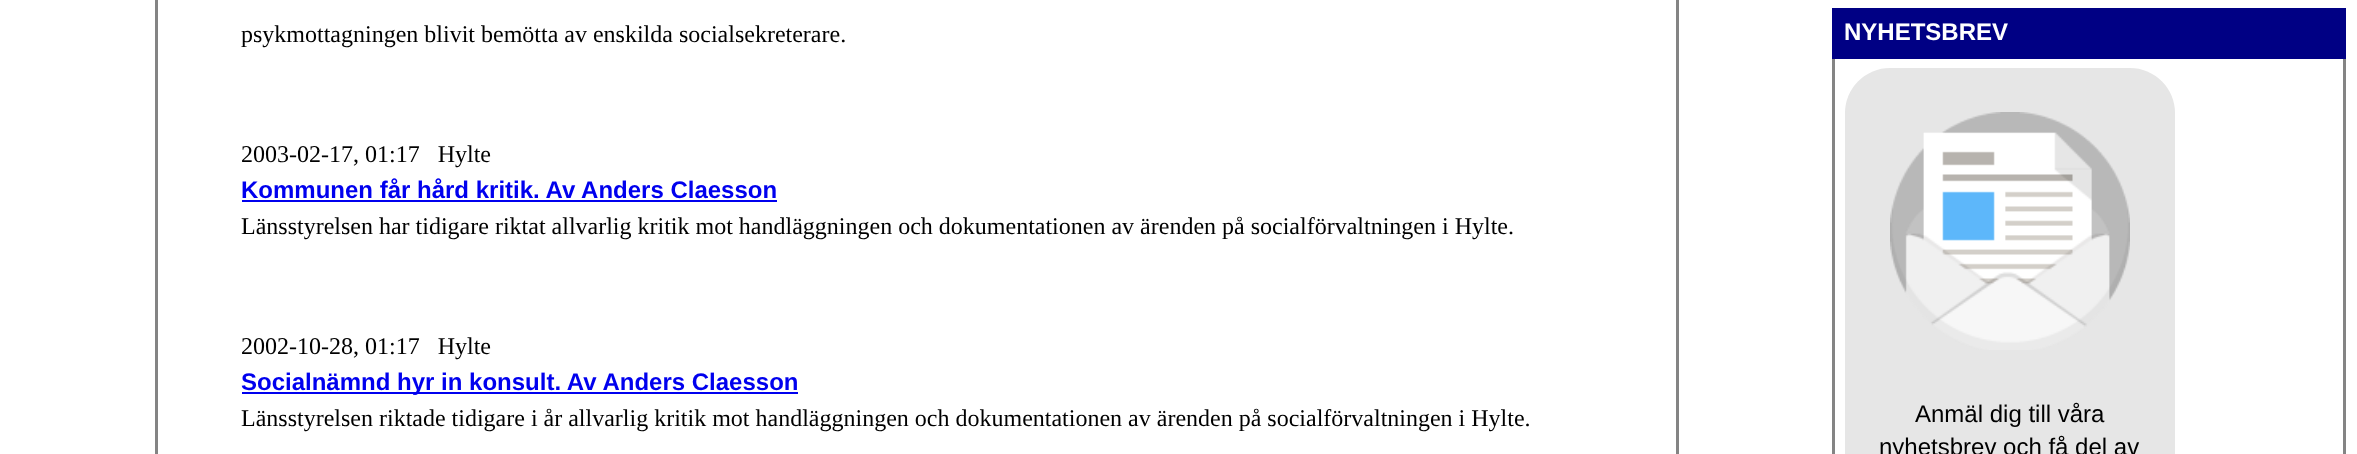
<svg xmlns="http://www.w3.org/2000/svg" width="2357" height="454">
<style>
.a{font:24px Liberation Serif;fill:#000}
.b{font:bold 24px Liberation Sans;fill:#00e}
.c{font:bold 24px Liberation Sans;fill:#fff}
.d{font:24px Liberation Sans;fill:#000}
</style>
<rect width="100%" height="100%" fill="#fff"/>
<path fill="none" stroke="#848484" stroke-width="3" d="M156.5 -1.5h1521v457H156.5z"/>
<path fill="#00e" d="M242 200h535v2H242z"/>
<path fill="#00e" d="M242 392h556v2H242z"/>
<path fill="#000084" d="M1832 8h514v51H1832z"/>
<path fill="#848484" d="M2343 59h3v395H2343z"/>
<path fill="#848484" d="M1832 59h3v395H1832z"/>
<rect fill="#e6e6e6" x="1845" y="68" width="330" height="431" rx="45"/>
<image href="1.png" x="1890" y="112" width="240" height="238"/>
<text class="a" x="241" y="42">psykmottagningen blivit bemötta av enskilda socialsekreterare.</text>
<text class="a" xml:space="preserve" x="241" y="162">2003-02-17, 01:17   Hylte</text>
<text class="b" x="241" y="198">Kommunen får hård kritik. Av Anders Claesson</text>
<text class="a" x="241" y="234">Länsstyrelsen har tidigare riktat allvarlig kritik mot handläggningen och dokumentationen av ärenden på socialförvaltningen i Hylte.</text>
<text class="a" xml:space="preserve" x="241" y="354">2002-10-28, 01:17   Hylte</text>
<text class="b" x="241" y="390">Socialnämnd hyr in konsult. Av Anders Claesson</text>
<text class="a" x="241" y="426">Länsstyrelsen riktade tidigare i år allvarlig kritik mot handläggningen och dokumentationen av ärenden på socialförvaltningen i Hylte.</text>
<text class="c" x="1844" y="40">NYHETSBREV</text>
<text class="d" x="1915" y="422">Anmäl dig till våra</text>
<text class="d" x="1879" y="455">nyhetsbrev och få del av</text>
</svg>
